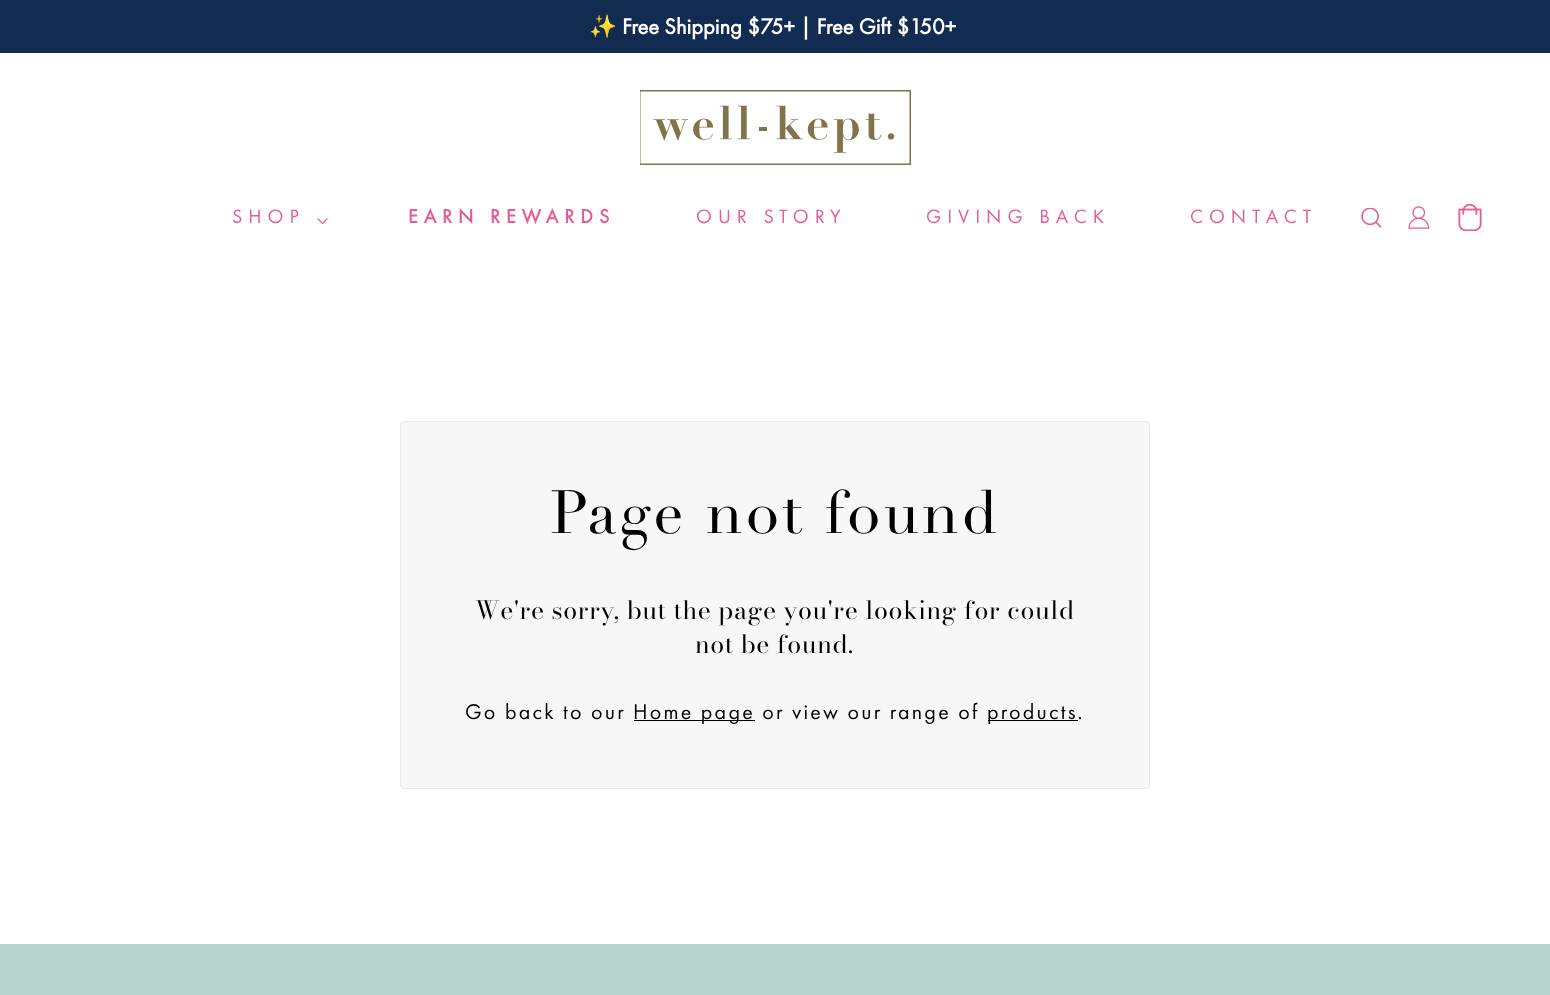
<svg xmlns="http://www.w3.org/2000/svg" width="1550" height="995">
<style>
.a{font:bold 22.5px Noto Color Emoji;fill:#fff}
.b{font:bold 22.5px Futura PT;fill:#fff}
.c{font:20px Futura PT;letter-spacing:6px;fill:#e65c94}
.d{font:bold 20px Futura PT;letter-spacing:6px;fill:#e65c94}
.e{font:60px Didot;letter-spacing:3px;fill:#000}
.f{font:25px Bodoni Moda;letter-spacing:0.6px;fill:#000}
.g{font:22px Futura PT;letter-spacing:2.2px;fill:#000}
</style>
<defs>
<clipPath id="clip1"><path d="M589 13h372v27H589z"/></clipPath>
</defs>
<rect width="100%" height="100%" fill="#fff"/>
<path fill="#122b50" d="M0 0h1550v53H0z"/>
<image href="1.png" x="640" y="90" width="271" height="75"/>
<image href="2.png" x="317" y="218" width="11" height="7"/>
<image href="3.png" x="1361" y="208" width="20" height="20"/>
<image href="4.png" x="1408" y="206" width="22" height="23"/>
<image href="5.png" x="1458" y="204" width="24" height="27"/>
<rect fill="#f7f7f7" stroke="#eaeaea" x="400.5" y="421.5" width="749" height="367" rx="3.5"/>
<path fill="#000" d="M634 720h121v1H634z"/>
<path fill="#000" d="M988 720h90v1H988z"/>
<path fill="#b8d5cd" d="M0 944h1550v51H0z"/>
<g clip-path="url(#clip1)">
<text class="a" x="589" y="34">✨</text>
</g>
<text class="b" x="622" y="34">Free Shipping $75+ | Free Gift $150+</text>
<text class="c" x="232" y="223">SHOP</text>
<text class="d" x="408" y="223">EARN REWARDS</text>
<text class="c" x="696" y="223">OUR STORY</text>
<text class="c" x="926" y="223">GIVING BACK</text>
<text class="c" x="1190" y="223">CONTACT</text>
<text class="e" x="550" y="533">Page not found</text>
<text class="f" x="475" y="619">We're sorry, but the page you're looking for could</text>
<text class="f" x="695" y="653">not be found.</text>
<text class="g" x="465" y="719">Go back to our</text>
<text class="g" x="633" y="719">Home page or view our range of</text>
<text class="g" x="987" y="719">products.</text>
</svg>
